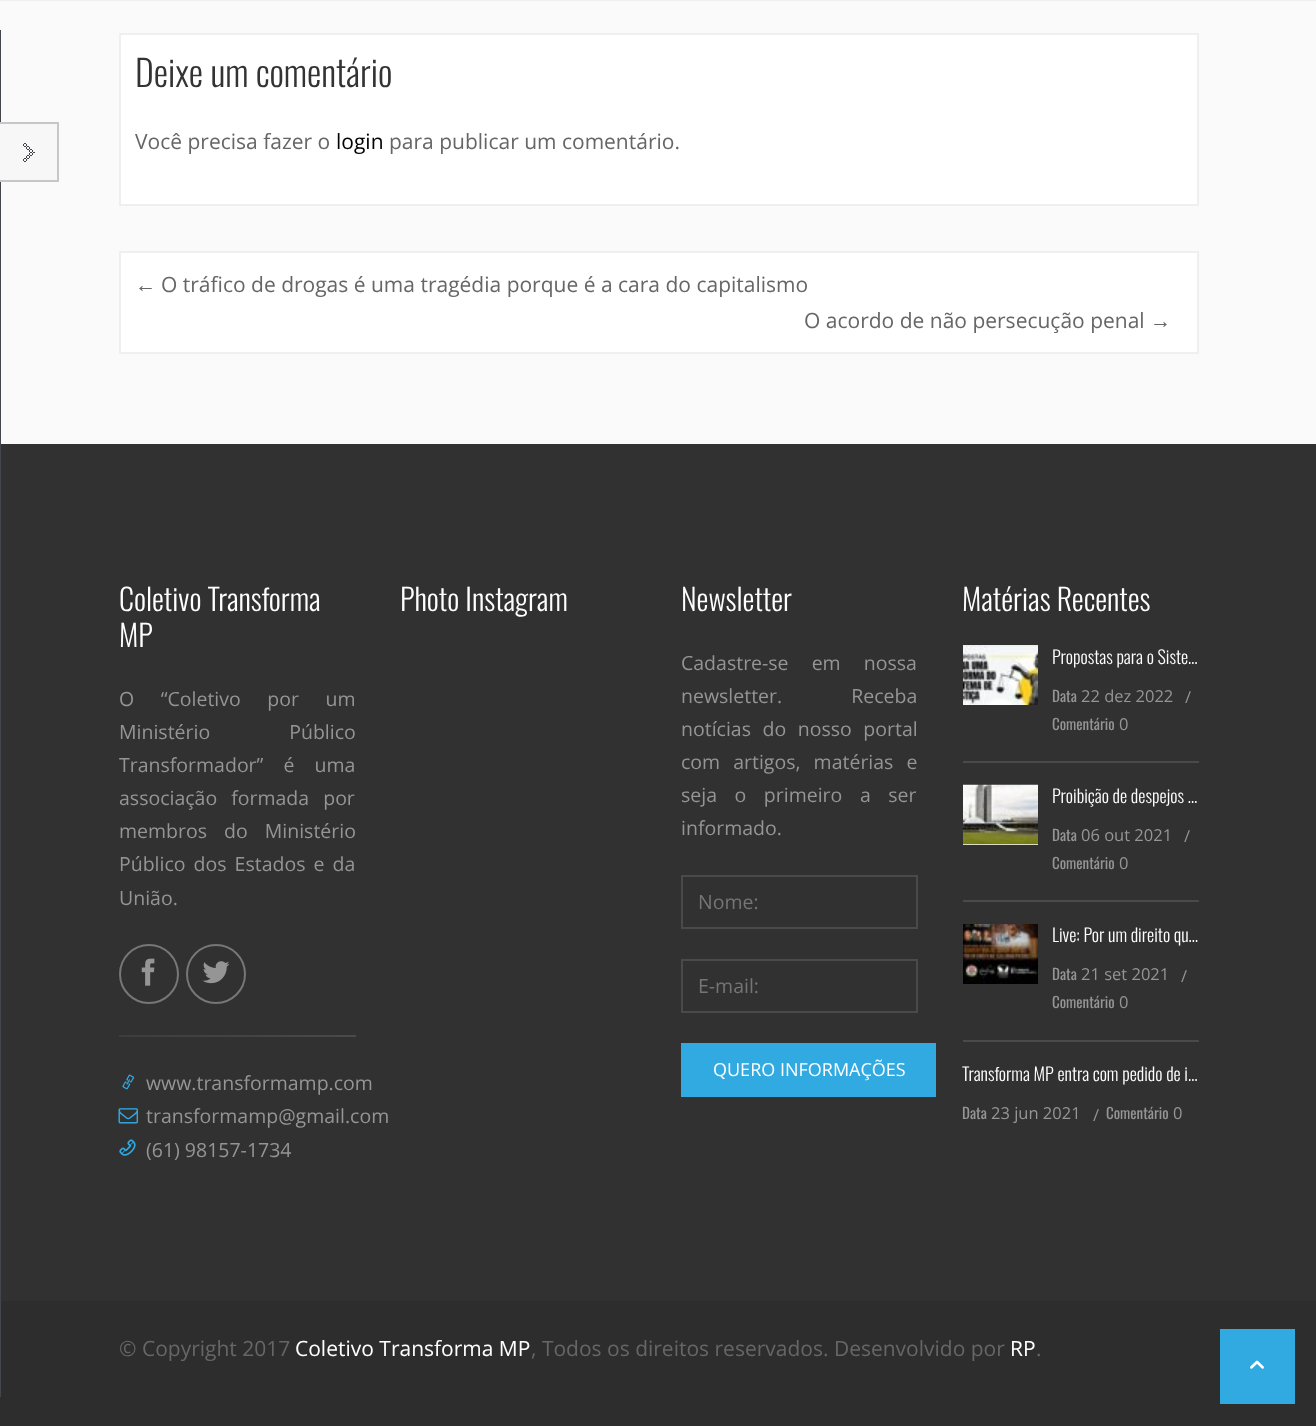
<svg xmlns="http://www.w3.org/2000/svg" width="1316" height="1426">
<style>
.a{font:300 36px Oswald;fill:#333}
.b{font:21px Open Sans;fill:#666}
.c{font:21px Open Sans;fill:#000}
.d{font:21px Liberation Serif;fill:#666}
.e{font:300 30px Oswald;fill:#fff}
.f{font:19.5px Open Sans;fill:#959595}
.g{font:19.5px Open Sans;fill:#757575}
.h{font:18px Open Sans;fill:#fff}
.i{font:300 18px Oswald;fill:#fff}
.j{font:15px Oswald;fill:#959595}
.k{font:16.5px Open Sans;fill:#959595}
.l{font:21px Open Sans;fill:#fff}
</style>
<defs>
<linearGradient id="g1" gradientUnits="userSpaceOnUse" x1="119" y1="1036" x2="356" y2="1036"><stop offset="0" stop-color="#3d3d3d"/><stop offset="0.35" stop-color="#414141"/><stop offset="0.7" stop-color="#464646"/><stop offset="1" stop-color="#4a4a4a"/></linearGradient>
</defs>
<rect width="100%" height="100%" fill="#fafafa"/>
<path fill="#2d2d2d" d="M0 1301h1316v125H0z"/>
<path fill="#43474d" d="M0 30h1v1367H0z"/>
<path fill="#f7f7f7" d="M0 124h57v56H0z"/>
<image href="1.png" x="23" y="143" width="12" height="19"/>
<path fill="#c7c7c7" d="M0 122h59v2H0z"/>
<path fill="#c7c7c7" d="M57 122h2v60H57z"/>
<path fill="#c7c7c7" d="M0 180h59v2H0z"/>
<path fill="#efefef" d="M0 0h1316v1H0z"/>
<path fill="#fff" stroke="#efefef" stroke-width="2" d="M120 34h1078v171H120z"/>
<path fill="#fff" stroke="#efefef" stroke-width="2" d="M120 252h1078v101H120z"/>
<path fill="#313131" d="M1 444h1315v857H1z"/>
<circle fill="none" stroke="#777" stroke-width="2" cx="149" cy="974" r="29"/>
<image href="2.png" x="141" y="958" width="14" height="28"/>
<circle fill="none" stroke="#777" stroke-width="2" cx="216" cy="974" r="29"/>
<image href="3.png" x="202" y="961" width="28" height="23"/>
<path fill="url(#g1)" d="M119 1035h237v2H119z"/>
<image href="4.png" x="122" y="1074" width="13" height="16"/>
<image href="5.png" x="118" y="1108" width="20" height="16"/>
<image href="6.png" x="119" y="1139" width="17" height="17"/>
<path fill="none" stroke="#4a4a4a" stroke-width="2" d="M682 876h235v52H682z"/>
<path fill="none" stroke="#4a4a4a" stroke-width="2" d="M682 960h235v52H682z"/>
<path fill="#31aae2" d="M681 1043h255v54H681z"/>
<image href="7.png" x="963" y="645" width="75" height="60"/>
<path fill="#4a4a4a" d="M963 761h236v2H963z"/>
<path fill="#fff" d="M963 844h75v1H963z"/>
<image href="8.png" x="963" y="784" width="75" height="61"/>
<path fill="#4a4a4a" d="M963 900h236v2H963z"/>
<image href="9.png" x="963" y="924" width="75" height="60"/>
<path fill="#4a4a4a" d="M963 1040h236v2H963z"/>
<path fill="#31aae2" d="M1220 1329h75v75H1220z"/>
<image href="10.png" x="1250" y="1360" width="14" height="9"/>
<text class="a" x="135" y="87">Deixe um comentário</text>
<text class="b" x="135" y="149">Você precisa fazer o</text>
<text class="c" x="336" y="149">login</text>
<text class="b" x="389" y="149">para publicar um comentário.</text>
<text class="d" x="135" y="292">←</text>
<text class="b" x="161" y="292">O tráfico de drogas é uma tragédia porque é a cara do capitalismo</text>
<text class="b" x="804" y="328">O acordo de não persecução penal</text>
<text class="d" x="1150" y="328">→</text>
<text class="e" x="119" y="611">Coletivo Transforma</text>
<text class="e" x="119" y="647">MP</text>
<text class="f" x="119" y="706" word-spacing="21.5">O “Coletivo por um</text>
<text class="f" x="119" y="739" word-spacing="74">Ministério Público</text>
<text class="f" x="119" y="772" word-spacing="15">Transformador” é uma</text>
<text class="f" x="119" y="805" word-spacing="9">associação formada por</text>
<text class="f" x="119" y="838" word-spacing="12">membros do Ministério</text>
<text class="f" x="119" y="871" word-spacing="3">Público dos Estados e da</text>
<text class="f" x="119" y="905">União.</text>
<text class="f" x="146" y="1090">www.transformamp.com</text>
<text class="f" x="146" y="1123">transformamp@gmail.com</text>
<text class="f" x="146" y="1157">(61) 98157-1734</text>
<text class="e" x="400" y="611">Photo Instagram</text>
<text class="e" x="681" y="611">Newsletter</text>
<text class="f" x="681" y="670" word-spacing="18">Cadastre-se em nossa</text>
<text class="f" x="681" y="703" word-spacing="64">newsletter. Receba</text>
<text class="f" x="681" y="736" word-spacing="6.5">notícias do nosso portal</text>
<text class="f" x="681" y="769" word-spacing="8">com artigos, matérias e</text>
<text class="f" x="681" y="802" word-spacing="12.5">seja o primeiro a ser</text>
<text class="f" x="681" y="835">informado.</text>
<text class="g" x="698" y="909">Nome:</text>
<text class="g" x="698" y="993">E-mail:</text>
<text class="h" x="713" y="1076">QUERO INFORMAÇÕES</text>
<text class="e" x="962" y="611">Matérias Recentes</text>
<text class="i" x="1052" y="664">Propostas para o Siste…</text>
<text class="j" x="1052" y="702">Data</text>
<text class="k" x="1081" y="702">22 dez 2022</text>
<text class="k" x="1185" y="703">/</text>
<text class="j" x="1052" y="730">Comentário</text>
<text class="k" x="1119" y="730">0</text>
<text class="i" x="1052" y="803">Proibição de despejos …</text>
<text class="j" x="1052" y="841">Data</text>
<text class="k" x="1081" y="841">06 out 2021</text>
<text class="k" x="1184" y="842">/</text>
<text class="j" x="1052" y="869">Comentário</text>
<text class="k" x="1119" y="869">0</text>
<text class="i" x="1052" y="942">Live: Por um direito qu…</text>
<text class="j" x="1052" y="980">Data</text>
<text class="k" x="1081" y="980">21 set 2021</text>
<text class="k" x="1181" y="982">/</text>
<text class="j" x="1052" y="1008">Comentário</text>
<text class="k" x="1119" y="1008">0</text>
<text class="i" x="962" y="1081">Transforma MP entra com pedido de i…</text>
<text class="j" x="962" y="1119">Data</text>
<text class="k" x="991" y="1119">23 jun 2021</text>
<text class="k" x="1093" y="1121">/</text>
<text class="j" x="1106" y="1119">Comentário</text>
<text class="k" x="1173" y="1119">0</text>
<text class="b" x="119" y="1356">© Copyright 2017</text>
<text class="l" x="295" y="1356">Coletivo Transforma MP</text>
<text class="b" x="531" y="1356">, Todos os direitos reservados. Desenvolvido por</text>
<text class="l" x="1010" y="1356">RP</text>
<text class="b" x="1036" y="1356">.</text>
</svg>
